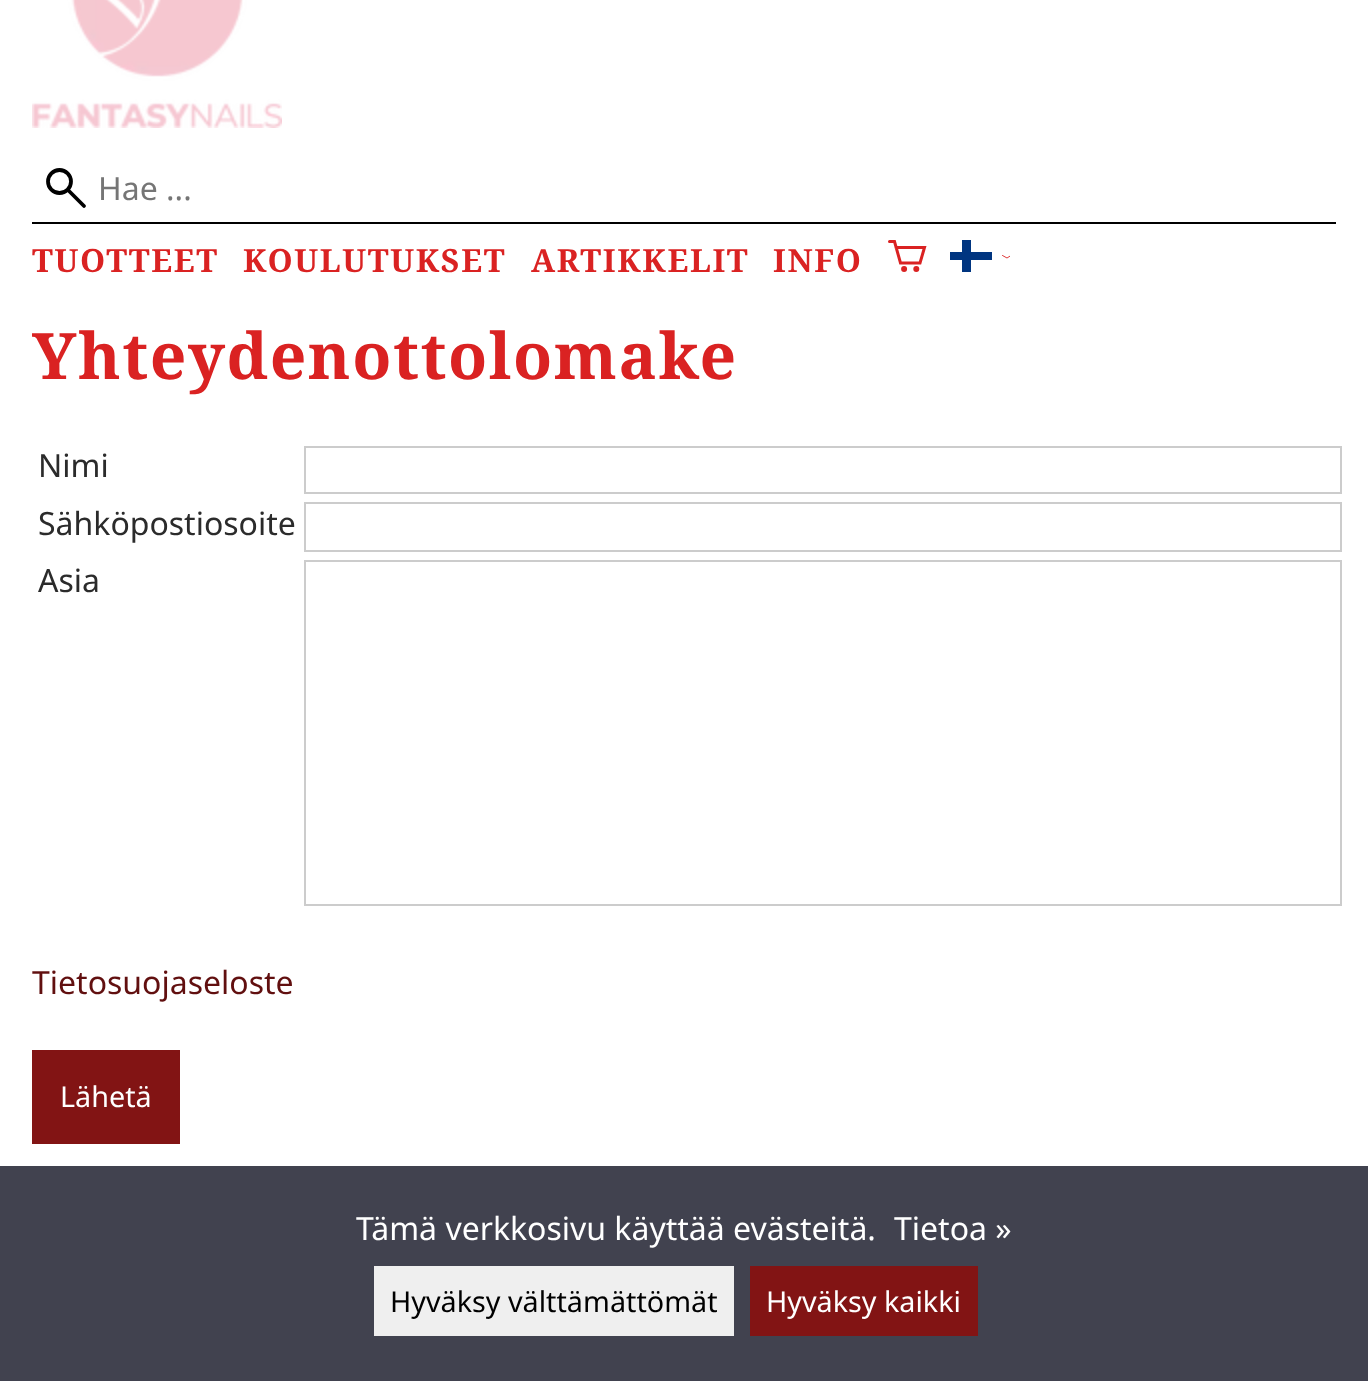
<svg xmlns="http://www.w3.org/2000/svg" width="1368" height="1381">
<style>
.a{font:32px Noto Sans;fill:#757575}
.b{font:bold 32px Noto Serif;letter-spacing:1.6px;fill:#da2222}
.c{font:bold 64px Noto Serif;letter-spacing:1.6px;fill:#da2222}
.d{font:32px Noto Sans;fill:#2b2b2b}
.e{font:32px Noto Sans;fill:#610f0f}
.f{font:28.75px Noto Sans;fill:#fff}
.g{font:32px Noto Sans;fill:#fff}
.h{font:28.75px Noto Sans;fill:#000}
</style>
<defs>
<clipPath id="clip1"><path d="M1002 240h8v32H1002z"/></clipPath>
</defs>
<rect width="100%" height="100%" fill="#fff"/>
<image href="1.png" x="32" y="0" width="250" height="128"/>
<path fill="none" stroke="#000" stroke-width="3.8" stroke-linecap="round" d="M84 206l-16-16"/>
<circle fill="none" stroke="#000" stroke-width="3.8" cx="59.5" cy="181.5" r="11.5"/>
<path fill="#000" d="M32 222h1304v2H32z"/>
<path fill="none" stroke="#da2222" stroke-width="3" stroke-linecap="round" d="M896 247.5h28.5l-4.5 15.5h-19.5l-6-21.5h-5"/>
<circle fill="none" stroke="#da2222" stroke-width="3" cx="904.1" cy="269" r="1.5"/>
<circle fill="none" stroke="#da2222" stroke-width="3" cx="916.3" cy="269" r="1.5"/>
<path fill="#003580" d="M950 252h42v8H950z"/>
<path fill="#003580" d="M962 240h9v32H962z"/>
<g clip-path="url(#clip1)">
<path fill="none" stroke="#da2222" stroke-width="0.9" stroke-linecap="round" d="M1002.5 255.5l4.5 2.5l4-2.5"/>
</g>
<path fill="none" stroke="#ccc" stroke-width="2" d="M305 447h1036v46H305z"/>
<path fill="none" stroke="#ccc" stroke-width="2" d="M305 503h1036v48H305z"/>
<path fill="none" stroke="#ccc" stroke-width="2" d="M305 561h1036v344H305z"/>
<path fill="#821414" d="M32 1050h148v94H32z"/>
<path fill="#41424f" d="M0 1166h1368v215H0z"/>
<path fill="#efefef" d="M374 1266h360v70H374z"/>
<path fill="#821414" d="M750 1266h228v70H750z"/>
<text class="a" x="98" y="200">Hae ...</text>
<text class="b" x="32" y="272">TUOTTEET</text>
<text class="b" x="243" y="272">KOULUTUKSET</text>
<text class="b" x="531" y="272">ARTIKKELIT</text>
<text class="b" x="773" y="272">INFO</text>
<text class="c" x="32" y="379">Yhteydenottolomake</text>
<text class="d" x="38" y="477">Nimi</text>
<text class="d" x="38" y="535">Sähköpostiosoite</text>
<text class="d" x="38" y="592">Asia</text>
<text class="e" x="32" y="994">Tietosuojaseloste</text>
<text class="f" x="60" y="1107">Lähetä</text>
<text class="g" x="356" y="1240">Tämä verkkosivu käyttää evästeitä.</text>
<text class="g" x="894" y="1240">Tietoa »</text>
<text class="h" x="390" y="1312">Hyväksy välttämättömät</text>
<text class="f" x="766" y="1312">Hyväksy kaikki</text>
</svg>
